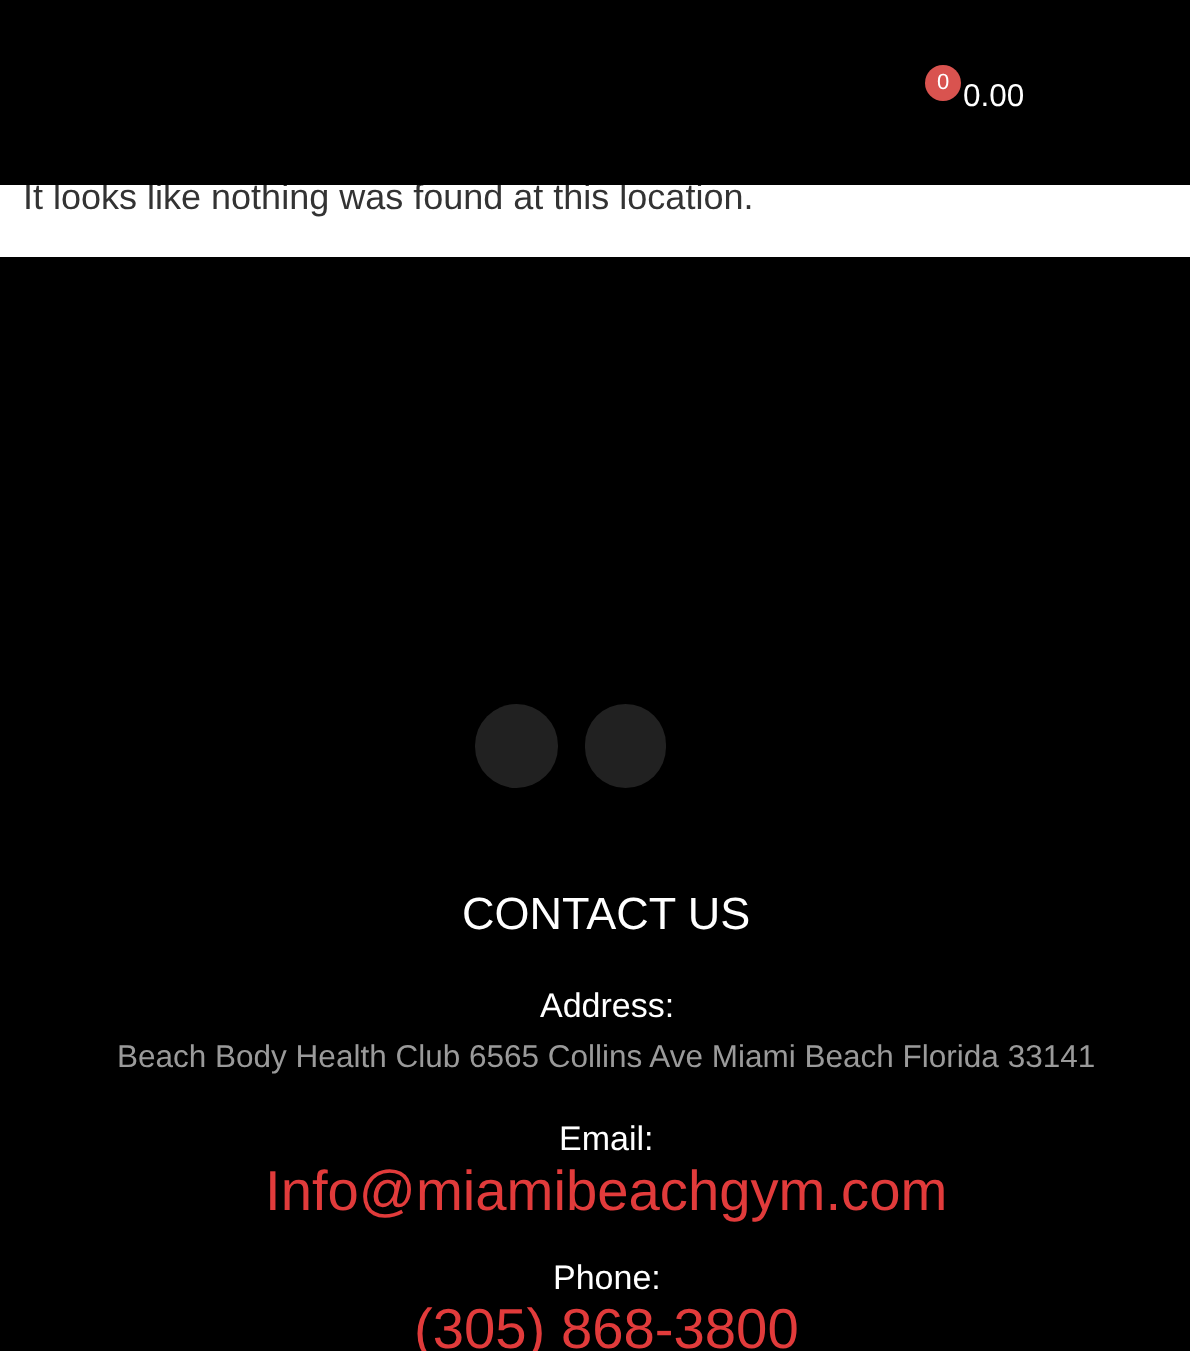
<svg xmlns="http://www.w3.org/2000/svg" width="1190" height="1351">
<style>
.a{font:36px Liberation Sans;fill:#333}
.b{font:22px Liberation Sans;fill:#fff}
.c{font:31.5px Liberation Sans;fill:#fff}
.d{font:45px Liberation Sans;fill:#fff}
.e{font:34px Liberation Sans;fill:#fff}
.f{font:31.5px Liberation Sans;fill:#9a9a9a}
.g{font:56.25px Liberation Sans;fill:#e13b3b}
</style>
<rect width="100%" height="100%" fill="#fff"/>
<path fill="#000" d="M0 257h1190v1094H0z"/>
<rect fill="#212121" x="475" y="704" width="83" height="84" rx="41.5"/>
<rect fill="#212121" x="585" y="704" width="81" height="84" rx="40.5"/>
<text class="a" x="23" y="209">It looks like nothing was found at this location.</text>
<path fill="#000" d="M0 0h1190v185H0z"/>
<circle fill="#d9534f" cx="943" cy="83" r="18"/>
<text class="b" x="937" y="89">0</text>
<text class="c" x="963" y="106">0.00</text>
<text class="d" x="462" y="929">CONTACT US</text>
<text class="e" x="540" y="1017">Address:</text>
<text class="f" x="117" y="1067">Beach Body Health Club 6565 Collins Ave Miami Beach Florida 33141</text>
<text class="e" x="559" y="1150">Email:</text>
<text class="g" x="265" y="1210">Info@miamibeachgym.com</text>
<text class="e" x="553" y="1289">Phone:</text>
<text class="g" x="414" y="1348">(305) 868-3800</text>
</svg>
